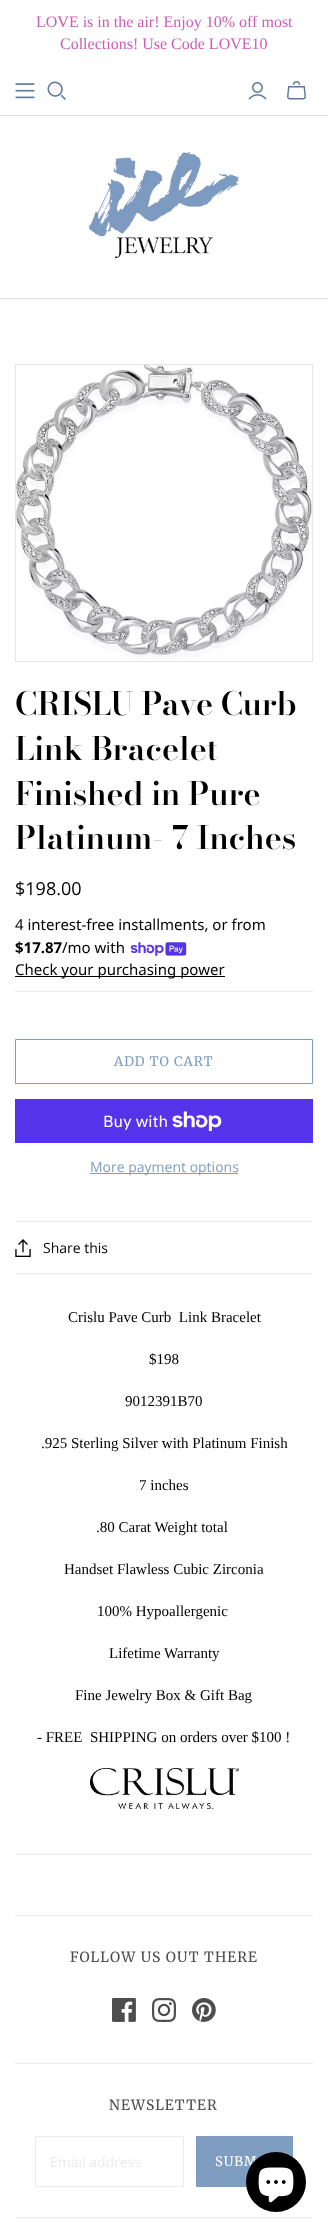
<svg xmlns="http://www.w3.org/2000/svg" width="328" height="2233">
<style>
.a{font:16px Liberation Serif;fill:#cc5cb7}
.b{font:600 32px Bodoni Moda;fill:#000}
.c{font:18px Open Sans;fill:#000}
.d{font:15px Noto Sans;fill:#000}
.e{font:bold 15px Noto Sans;fill:#000}
.f{font:13px Merriweather;letter-spacing:1px;fill:#7e9dc0}
.g{font:16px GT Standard;fill:#fff}
.h{font:14px Open Sans;fill:#7e9dc0}
.i{font:14px Open Sans;fill:#000}
.j{font:15px Liberation Serif;fill:#000}
.k{font:14px Merriweather;letter-spacing:1.1px;fill:#4d4d4d}
.l{font:14px Open Sans;fill:#ebebeb}
.m{font:13px Merriweather;letter-spacing:1px;fill:#fff}
</style>
<rect width="100%" height="100%" fill="#fff"/>
<path fill="#ddd" d="M0 298h328v1H0z"/>
<image href="1.png" x="15" y="83" width="20" height="16"/>
<image href="2.png" x="47" y="81" width="19" height="19"/>
<image href="3.png" x="248" y="82" width="19" height="18"/>
<image href="4.png" x="287" y="81" width="19" height="19"/>
<path fill="#ddd" d="M0 115h328v1H0z"/>
<image href="5.png" x="89" y="152" width="150" height="106"/>
<image href="6.png" x="15" y="364" width="297" height="296"/>
<path fill="none" stroke="#0000001a" d="M15.5 364.5h297v297H15.5z"/>
<path fill="#ebebeb" d="M15 991h298v1H15z"/>
<image href="7.png" x="130" y="942" width="57" height="14"/>
<path fill="#000" d="M15 976h210v1H15z"/>
<path fill="#ebebeb" d="M15 1221h298v1H15z"/>
<path fill="none" stroke="#7e9dc0" d="M15.5 1039.5h297v44H15.5z"/>
<path fill="#5433eb" d="M15 1099h298v44H15z"/>
<image href="8.png" x="172" y="1111" width="50" height="20"/>
<path fill="#7e9dc0" d="M90 1173h148v1H90z"/>
<path fill="#ebebeb" d="M15 1273h298v1H15z"/>
<image href="9.png" x="15" y="1239" width="16" height="18"/>
<image href="10.png" x="90" y="1768" width="149" height="41"/>
<path fill="#ebebeb" d="M15 1854h298v1H15z"/>
<path fill="#ebebeb" d="M15 2217h298v1H15z"/>
<path fill="#ebebeb" d="M15 1915h298v1H15z"/>
<image href="11.png" x="112" y="1998" width="24" height="24"/>
<image href="12.png" x="152" y="1998" width="24" height="24"/>
<image href="13.png" x="192" y="1998" width="24" height="24"/>
<path fill="#ebebeb" d="M15 2063h298v1H15z"/>
<path fill="none" stroke="#ebebeb" d="M35.5 2136.5h148v50H35.5z"/>
<path fill="#7e9dc0" d="M196 2136h97v51H196z"/>
<text class="a" x="36" y="27">LOVE is in the air! Enjoy 10% off most</text>
<text class="a" x="60" y="49">Collections! Use Code LOVE10</text>
<text class="b" x="15" y="715">CRISLU Pave Curb</text>
<text class="b" x="15" y="760">Link Bracelet</text>
<text class="b" x="15" y="805">Finished in Pure</text>
<text class="b" x="15" y="849">Platinum- 7 Inches</text>
<text class="c" x="15" y="895">$198.00</text>
<text class="d" x="15" y="930">4 interest-free installments, or from</text>
<text class="e" x="15" y="953">$17.87</text>
<text class="d" x="62" y="953">/mo with</text>
<text class="d" x="15" y="975">Check your purchasing power</text>
<text class="f" x="114" y="1066">ADD TO CART</text>
<text class="g" x="103" y="1127">Buy with</text>
<text class="h" x="90" y="1172">More payment options</text>
<text class="i" x="43" y="1253">Share this</text>
<text class="j" xml:space="preserve" x="68" y="1322">Crislu Pave Curb  Link Bracelet</text>
<text class="j" x="149" y="1364">$198</text>
<text class="j" x="125" y="1406">9012391B70</text>
<text class="j" x="41" y="1448">.925 Sterling Silver with Platinum Finish</text>
<text class="j" x="139" y="1490">7 inches</text>
<text class="j" x="96" y="1532">.80 Carat Weight total</text>
<text class="j" x="64" y="1574">Handset Flawless Cubic Zirconia</text>
<text class="j" x="97" y="1616">100% Hypoallergenic</text>
<text class="j" x="109" y="1658">Lifetime Warranty</text>
<text class="j" x="75" y="1700">Fine Jewelry Box &amp; Gift Bag</text>
<text class="j" xml:space="preserve" x="37" y="1742">- FREE  SHIPPING on orders over $100 !</text>
<text class="k" x="70" y="1962">FOLLOW US OUT THERE</text>
<text class="k" x="109" y="2110">NEWSLETTER</text>
<text class="l" x="50" y="2167">Email address</text>
<text class="m" x="215" y="2166">SUBM</text>
<circle fill="#000" cx="276" cy="2182" r="30"/>
<image href="14.png" x="258" y="2167" width="36" height="36"/>
</svg>
